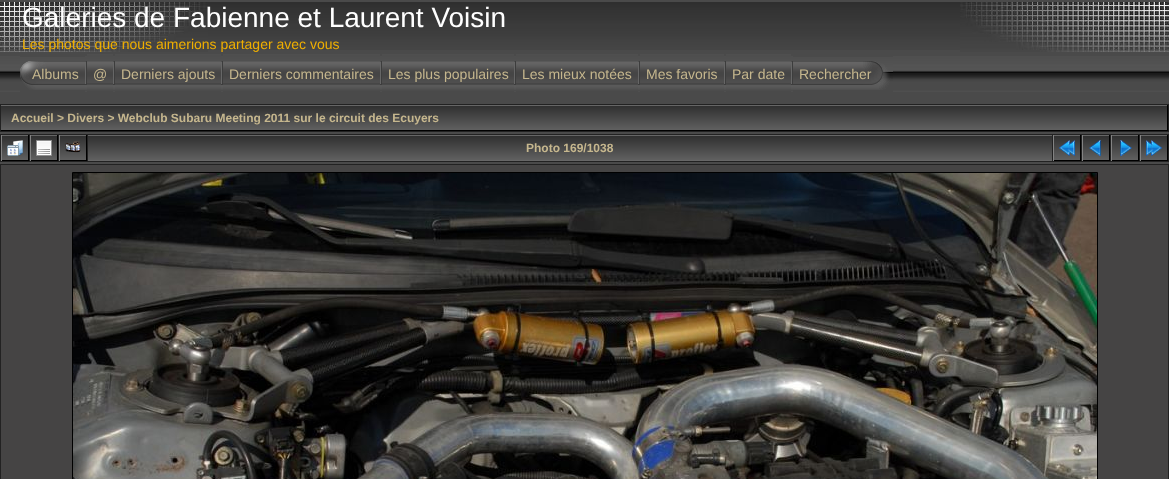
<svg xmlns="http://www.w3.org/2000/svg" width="1169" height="479">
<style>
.a{font:28px Liberation Sans;fill:#fff}
.b{font:14px Liberation Sans;fill:#f0af00}
.c{font:14px Liberation Sans;fill:#c6b78e}
.d{font:bold 12px Liberation Sans;fill:#c6b78e}
</style>
<rect width="100%" height="100%" fill="#4a4a4a"/>
<image href="1.png" x="208" y="2" width="752" height="48"/>
<image href="2.png" x="0" y="2" width="208" height="50"/>
<image href="3.png" x="960" y="2" width="209" height="50"/>
<image href="4.png" x="0" y="56" width="1169" height="36"/>
<path fill="#4a4a4a" d="M20 56h65v36H20z"/>
<image href="5.png" x="20" y="57" width="65" height="33"/>
<image href="6.png" x="85" y="61" width="2" height="29"/>
<path fill="#4a4a4a" d="M87 91h26v1H87z"/>
<image href="7.png" x="87" y="54" width="26" height="36"/>
<image href="6.png" x="113" y="61" width="2" height="29"/>
<path fill="#4a4a4a" d="M115 91h106v1H115z"/>
<image href="8.png" x="115" y="54" width="106" height="36"/>
<image href="6.png" x="221" y="61" width="2" height="29"/>
<path fill="#4a4a4a" d="M223 91h157v1H223z"/>
<image href="9.png" x="223" y="54" width="157" height="36"/>
<image href="6.png" x="380" y="61" width="2" height="29"/>
<path fill="#4a4a4a" d="M382 91h132v1H382z"/>
<image href="10.png" x="382" y="54" width="132" height="36"/>
<image href="6.png" x="514" y="61" width="2" height="29"/>
<path fill="#4a4a4a" d="M516 91h122v1H516z"/>
<image href="11.png" x="516" y="54" width="122" height="36"/>
<image href="6.png" x="638" y="61" width="2" height="29"/>
<path fill="#4a4a4a" d="M640 91h84v1H640z"/>
<image href="12.png" x="640" y="54" width="84" height="36"/>
<image href="6.png" x="724" y="61" width="2" height="29"/>
<path fill="#4a4a4a" d="M726 91h65v1H726z"/>
<image href="13.png" x="726" y="54" width="65" height="36"/>
<image href="6.png" x="791" y="61" width="2" height="29"/>
<path fill="#4a4a4a" d="M793 56h100v36H793z"/>
<image href="14.png" x="793" y="57" width="100" height="33"/>
<path fill="#222" d="M0 104h1169v28H0z"/>
<image href="15.png" x="1" y="105" width="1166" height="25"/>
<path fill="#000" d="M1167 105h1v26H1167z"/>
<path fill="#000" d="M1 130h1167v1H1z"/>
<path fill="#222" d="M0 134h1169v28H0z"/>
<image href="16.png" x="2" y="135" width="26" height="25"/>
<path fill="#000" d="M28 135h1v26H28z"/>
<path fill="#000" d="M1 160h28v1H1z"/>
<path fill="#838383" d="M1 135h1v26H1z"/>
<image href="17.png" x="7" y="140" width="16" height="16"/>
<image href="16.png" x="31" y="135" width="26" height="25"/>
<path fill="#000" d="M57 135h1v26H57z"/>
<path fill="#000" d="M30 160h28v1H30z"/>
<path fill="#838383" d="M30 135h1v26H30z"/>
<image href="18.png" x="36" y="140" width="16" height="16"/>
<image href="16.png" x="60" y="135" width="26" height="25"/>
<path fill="#000" d="M86 135h1v26H86z"/>
<path fill="#000" d="M59 160h28v1H59z"/>
<path fill="#838383" d="M59 135h1v26H59z"/>
<image href="19.png" x="65" y="141" width="16" height="12"/>
<image href="20.png" x="88" y="135" width="964" height="26"/>
<image href="16.png" x="1054" y="135" width="26" height="25"/>
<path fill="#000" d="M1080 135h1v26H1080z"/>
<path fill="#000" d="M1053 160h28v1H1053z"/>
<path fill="#838383" d="M1053 135h1v26H1053z"/>
<image href="21.png" x="1059" y="140" width="16" height="16"/>
<image href="16.png" x="1083" y="135" width="26" height="25"/>
<path fill="#000" d="M1109 135h1v26H1109z"/>
<path fill="#000" d="M1082 160h28v1H1082z"/>
<path fill="#838383" d="M1082 135h1v26H1082z"/>
<image href="22.png" x="1089" y="140" width="12" height="16"/>
<image href="16.png" x="1112" y="135" width="26" height="25"/>
<path fill="#000" d="M1138 135h1v26H1138z"/>
<path fill="#000" d="M1111 160h28v1H1111z"/>
<path fill="#838383" d="M1111 135h1v26H1111z"/>
<image href="23.png" x="1120" y="140" width="12" height="16"/>
<image href="16.png" x="1141" y="135" width="26" height="25"/>
<path fill="#000" d="M1167 135h1v26H1167z"/>
<path fill="#000" d="M1140 160h28v1H1140z"/>
<path fill="#838383" d="M1140 135h1v26H1140z"/>
<image href="24.png" x="1146" y="140" width="16" height="16"/>
<path fill="#222" d="M0 164h1169v315H0z"/>
<path fill="#454444" d="M1 165h1167v314H1z"/>
<path fill="none" stroke="#000" d="M72.5 172.5h1025v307H72.5z"/>
<image href="25.png" x="73" y="173" width="1024" height="306"/>
<text class="a" x="22" y="27">Galeries de Fabienne et Laurent Voisin</text>
<text class="b" x="22" y="49">Les photos que nous aimerions partager avec vous</text>
<text class="c" x="32" y="79">Albums</text>
<text class="c" x="93" y="79">@</text>
<text class="c" x="121" y="79">Derniers ajouts</text>
<text class="c" x="229" y="79">Derniers commentaires</text>
<text class="c" x="388" y="79">Les plus populaires</text>
<text class="c" x="522" y="79">Les mieux notées</text>
<text class="c" x="646" y="79">Mes favoris</text>
<text class="c" x="732" y="79">Par date</text>
<text class="c" x="799" y="79">Rechercher</text>
<text class="d" x="11" y="122">Accueil &gt; Divers &gt; Webclub Subaru Meeting 2011 sur le circuit des Ecuyers</text>
<text class="d" x="526" y="152">Photo 169/1038</text>
</svg>
